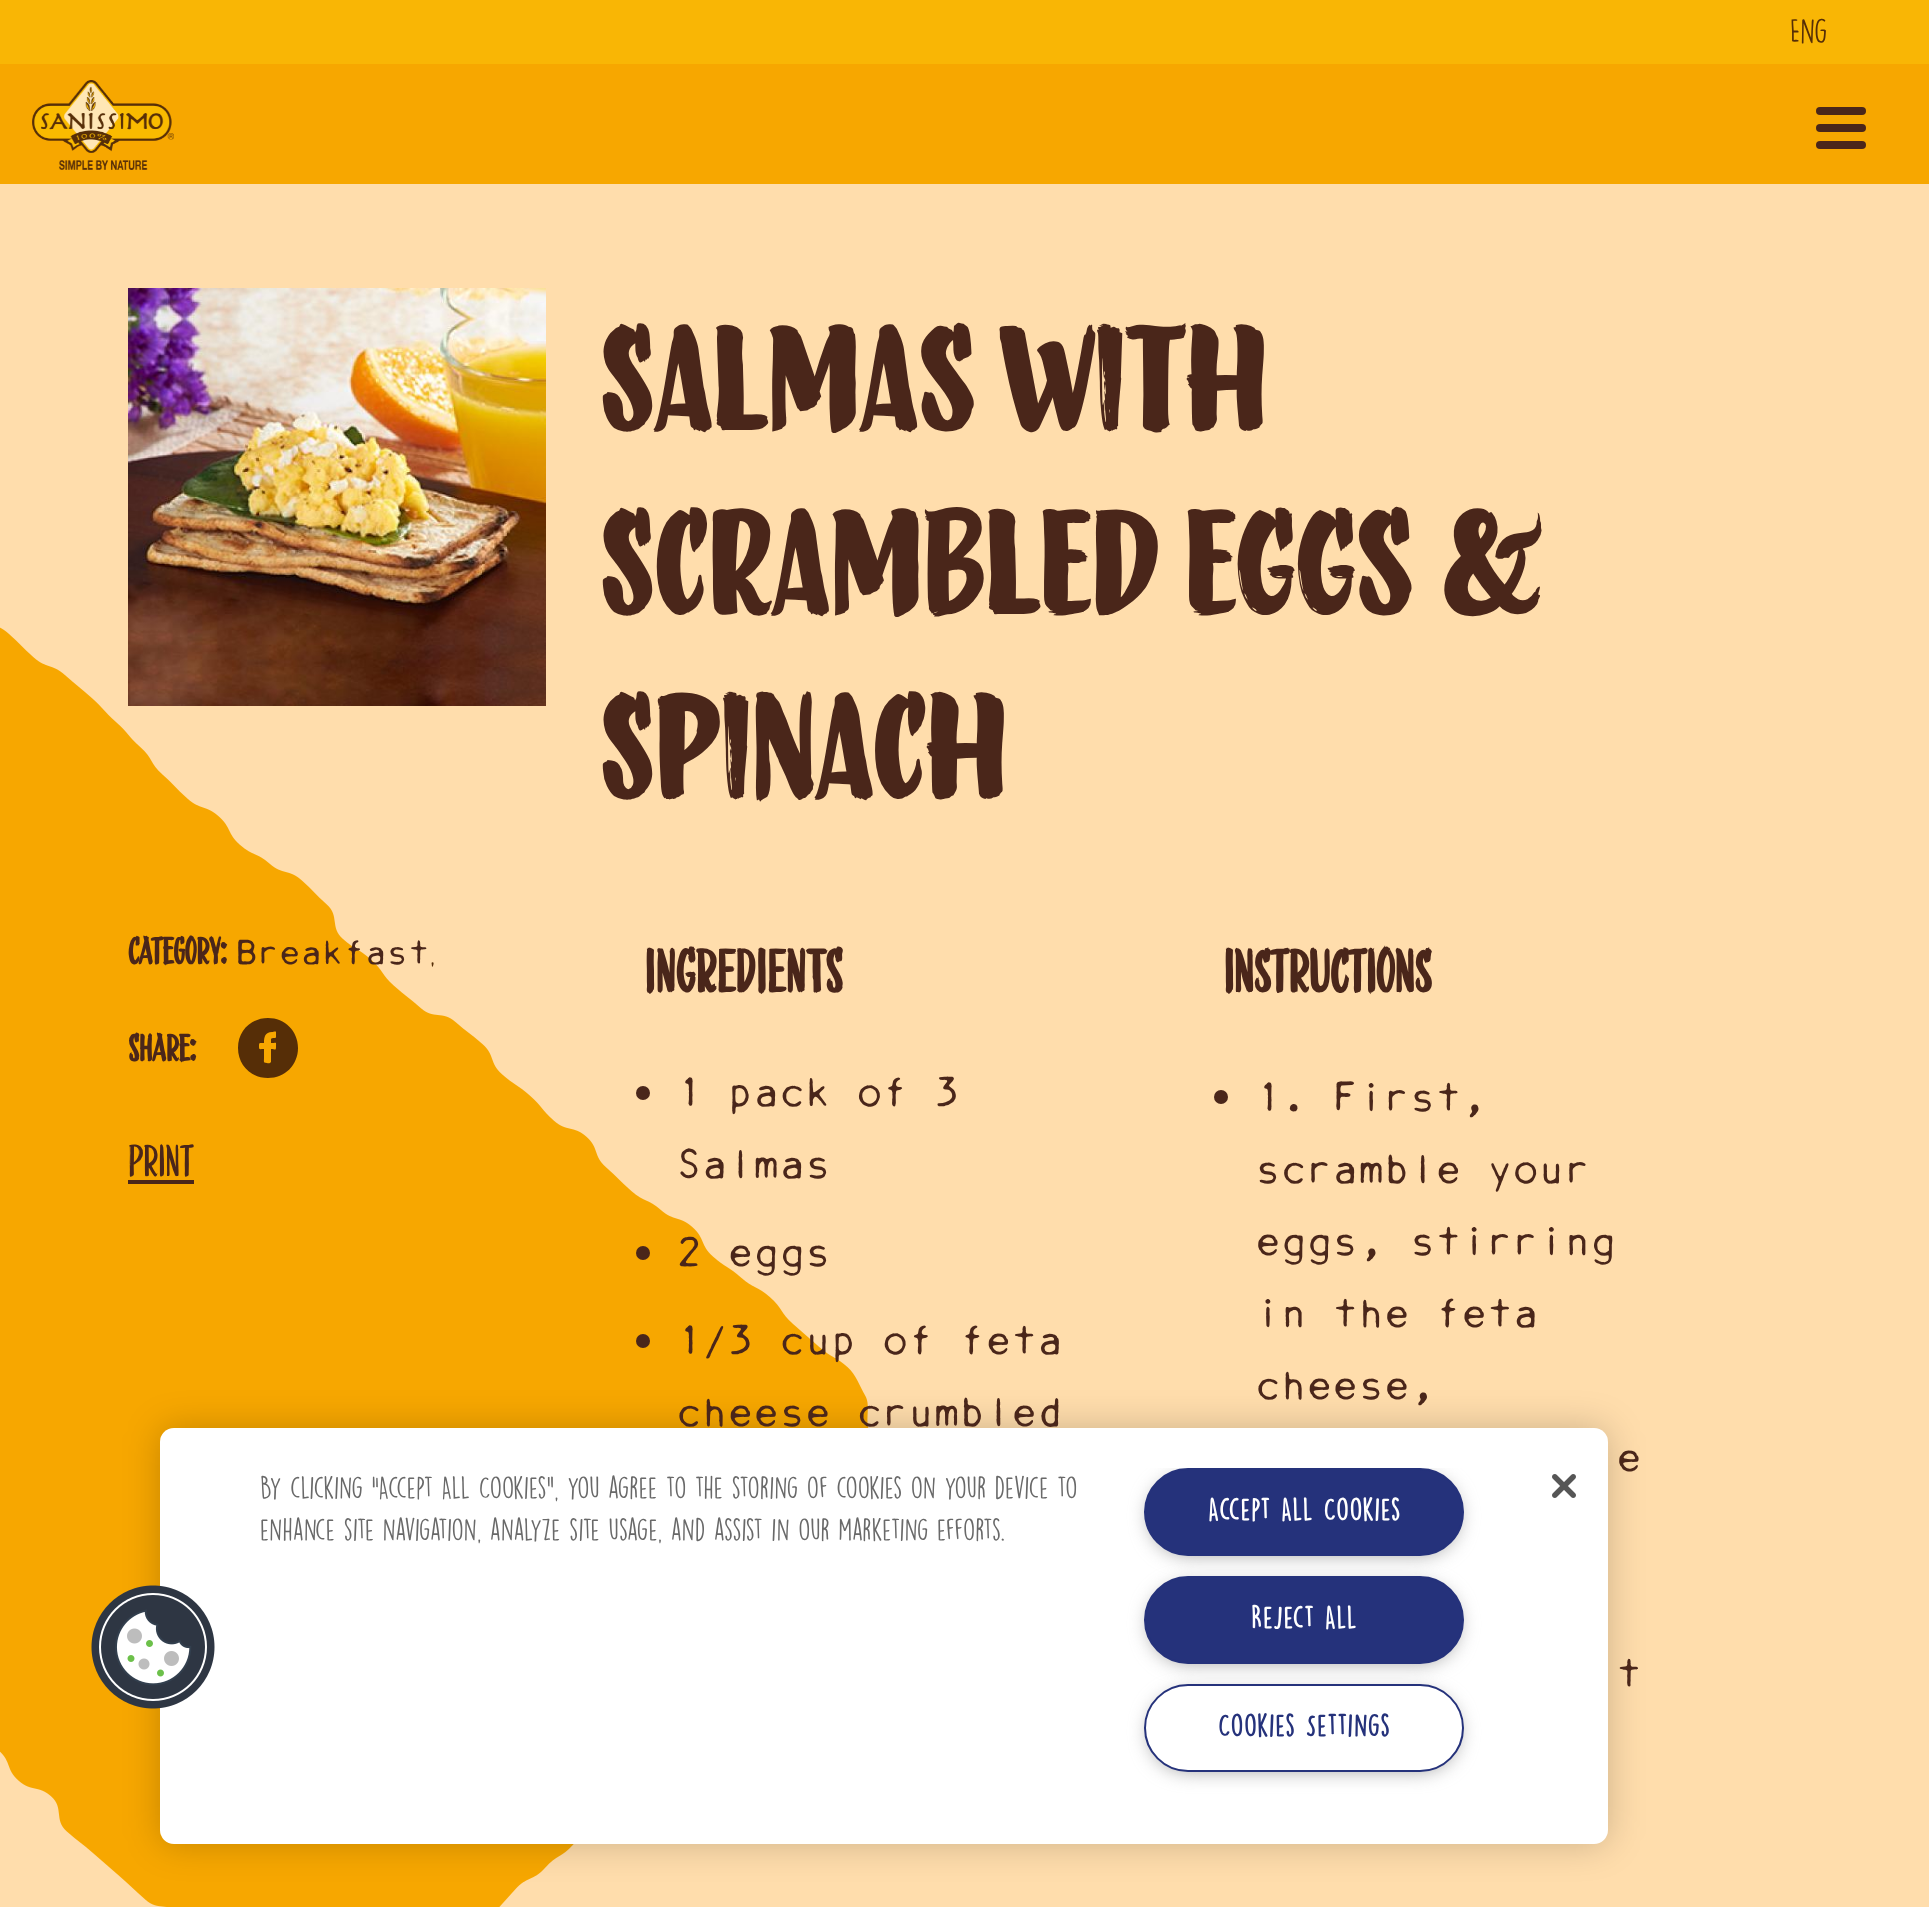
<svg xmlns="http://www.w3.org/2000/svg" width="1929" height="1907">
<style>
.a{font:32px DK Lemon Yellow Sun;fill:#562e07}
.b{font:bold 160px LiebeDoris;fill:#4a261a}
.c{font:bold 40px 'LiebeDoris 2';fill:#4a261a}
.d{font:40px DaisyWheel;fill:#4a261a}
.e{font:48px LiebeDoris;fill:#4a261a}
.f{font:bold 64px 'LiebeDoris 2';letter-spacing:0.75px;fill:#4a261a}
.g{font:48px DaisyWheel;fill:#4a261a}
.h{font:bold 64px 'LiebeDoris 2';fill:#4a261a}
.i{font:28px DK Lemon Yellow Sun;fill:#696969}
.j{font:bold 28px DK Lemon Yellow Sun;letter-spacing:1.4px;fill:#fff}
.k{font:bold 28px DK Lemon Yellow Sun;letter-spacing:1.4px;fill:#25327b}
</style>
<defs>
<clipPath id="clip1"><path d="M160 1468h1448v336H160z"/></clipPath>
</defs>
<rect width="100%" height="100%" fill="#ffddac"/>
<path fill="#f7a700" d="M0 64h1929v120H0z"/>
<path fill="#f9b605" d="M0 0h1929v64H0z"/>
<image href="1.png" x="32" y="80" width="142" height="90"/>
<rect fill="#4a261a" x="1816" y="141" width="50" height="8" rx="4"/>
<rect fill="#4a261a" x="1816" y="124" width="50" height="8" rx="4"/>
<rect fill="#4a261a" x="1816" y="107" width="50" height="8" rx="4"/>
<image href="2.png" x="0" y="627" width="869" height="1280"/>
<image href="3.png" x="128" y="288" width="418" height="418"/>
<path fill="#562e07" fill-rule="evenodd" d="M268 1018c-17 0-30 13-30 30c0 17 13 30 30 30c17 0 30-13 30-30c0-17-13-30-30-30zm8 19c0 2-4 0-5 2v4c6 0 5-2 5 4c0 4-1 2-5 2v13c-1 2-4 1-4 1c-4 0-3-1-3-5v-9c-4 0-5 1-5-2c0-5 0-4 5-4c0-6 1-11 8-11c1 0 4-1 4 0z"/>
<path fill="#4a261a" d="M128 1180h66v4H128z"/>
<circle fill="#4a261a" cx="643" cy="1093" r="7"/>
<circle fill="#4a261a" cx="643" cy="1253" r="7"/>
<circle fill="#4a261a" cx="643" cy="1341" r="7"/>
<circle fill="#4a261a" cx="1221" cy="1097" r="7"/>
<rect fill="#00000033" filter="blur(18px)" x="160" y="1428" width="1448" height="416" rx="14"/>
<rect fill="#fff" x="160" y="1428" width="1448" height="416" rx="14"/>
<image href="4.png" x="91" y="1585" width="124" height="124"/>
<g clip-path="url(#clip1)">
<rect fill="#999" filter="blur(10px)" x="1150" y="1478" width="308" height="76" rx="38"/>
</g>
<rect fill="#25327b" stroke="#25327b" stroke-width="2" x="1145" y="1469" width="318" height="86" rx="43"/>
<rect fill="#999" filter="blur(10px)" x="1150" y="1586" width="308" height="76" rx="38"/>
<rect fill="#25327b" stroke="#25327b" stroke-width="2" x="1145" y="1577" width="318" height="86" rx="43"/>
<rect fill="#999" filter="blur(10px)" x="1150" y="1694" width="308" height="76" rx="38"/>
<rect fill="#fff" stroke="#25327b" stroke-width="2" x="1145" y="1685" width="318" height="86" rx="43"/>
<image href="5.png" x="1552" y="1474" width="24" height="24"/>
<text class="a" x="1790" y="44">Eng</text>
<text class="b" x="600" y="430">Salmas with</text>
<text class="b" x="600" y="614">Scrambled Eggs &amp;</text>
<text class="b" x="600" y="798">Spinach</text>
<text class="c" x="128" y="964">Category:</text>
<text class="d" x="236" y="964">Breakfast</text>
<text class="a" x="430" y="964">,</text>
<text class="c" x="128" y="1061">Share:</text>
<text class="e" x="128" y="1176">Print</text>
<text class="f" x="644" y="992">INGREDIENTS</text>
<text class="g" x="676" y="1106">1 pack of 3</text>
<text class="g" x="676" y="1178">Salmas</text>
<text class="g" x="676" y="1266">2 eggs</text>
<text class="g" x="676" y="1354">1/3 cup of feta</text>
<text class="g" x="676" y="1426">cheese crumbled</text>
<text class="h" x="1223" y="992">Instructions</text>
<text class="g" x="1255" y="1111">1. First,</text>
<text class="g" x="1255" y="1183">scramble your</text>
<text class="g" x="1255" y="1255">eggs, stirring</text>
<text class="g" x="1255" y="1327">in the feta</text>
<text class="g" x="1255" y="1399">cheese,</text>
<text class="g" x="1616" y="1471">e</text>
<text class="g" x="1616" y="1687">t</text>
<text class="i" x="260" y="1499">By clicking “Accept All Cookies”, you agree to the storing of cookies on your device to</text>
<text class="i" x="260" y="1541">enhance site navigation, analyze site usage, and assist in our marketing efforts.</text>
<text class="j" x="1208" y="1521">Accept All Cookies</text>
<text class="j" x="1251" y="1629">Reject All</text>
<text class="k" x="1218" y="1737">Cookies Settings</text>
</svg>
